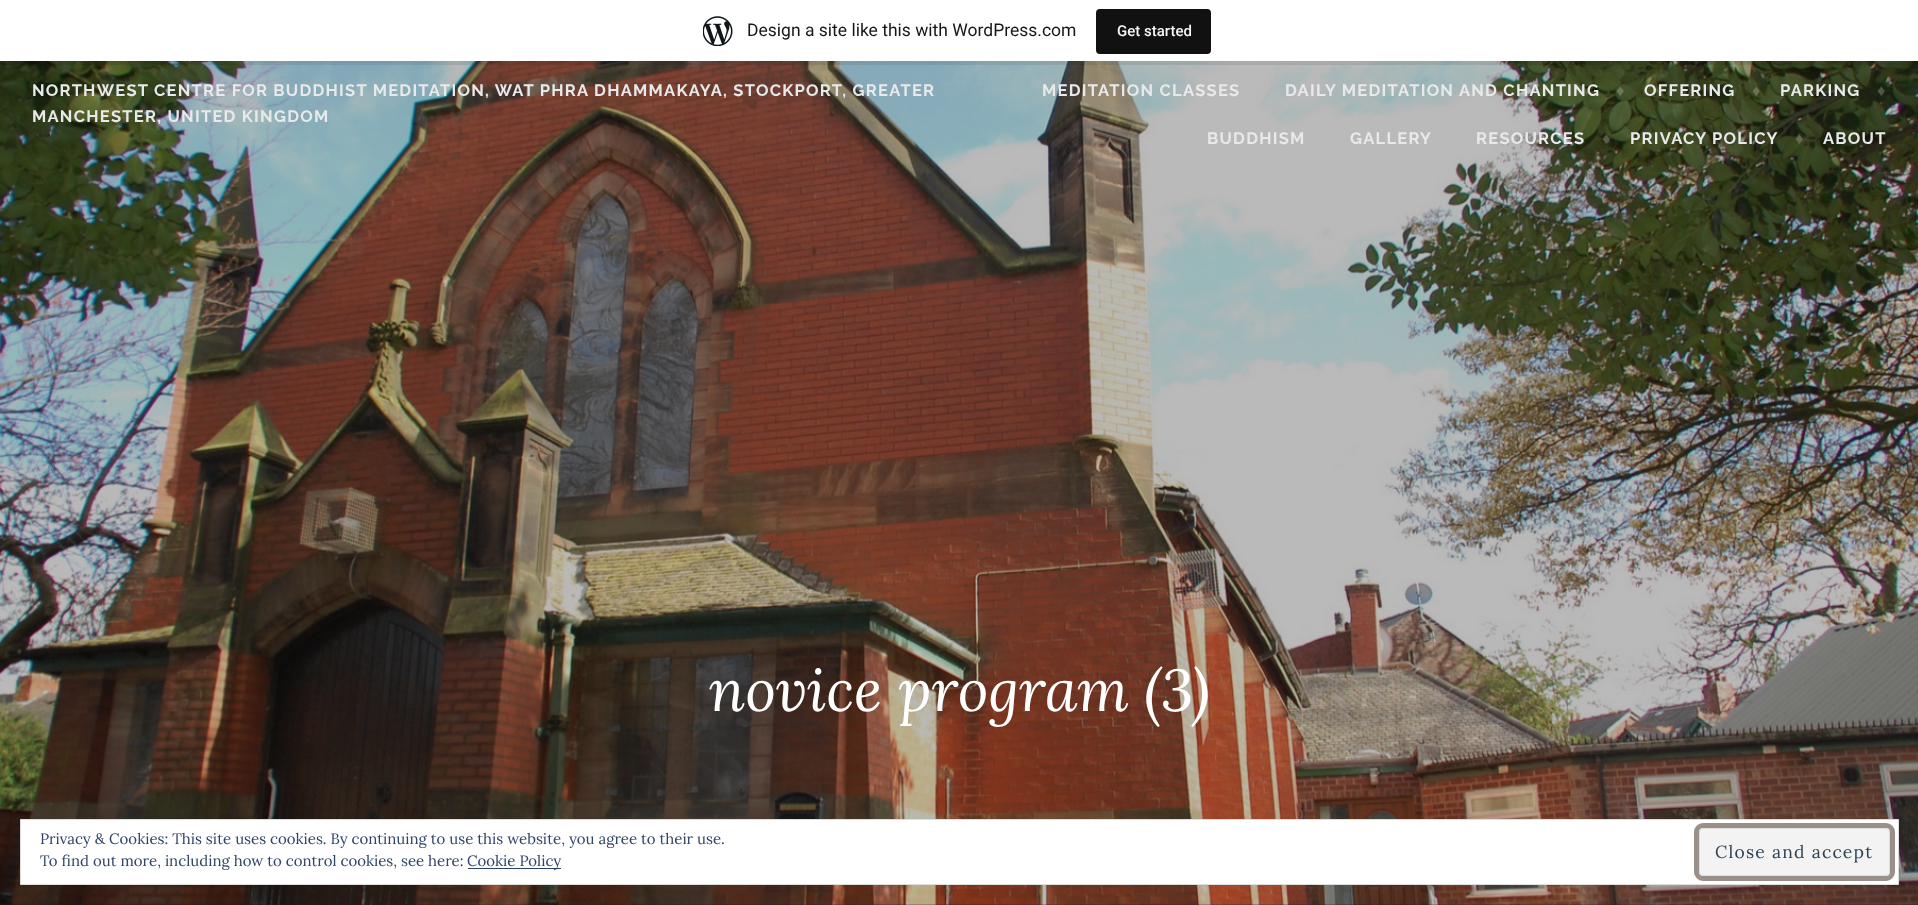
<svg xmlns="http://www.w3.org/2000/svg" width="1918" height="905">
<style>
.a{font:17.5px Roboto;fill:#171717}
.b{font:500 15px Roboto;fill:#f6f7f7}
.c{font:bold 16.5px Raleway;letter-spacing:1.25px;fill:#e8e9ea}
.d{font:bold 16.5px Liberation Sans;letter-spacing:1.25px;fill:#6c775b}
.e{font:bold 16.5px Liberation Sans;letter-spacing:1.25px;fill:#687156}
.f{font:bold 16.5px Liberation Sans;letter-spacing:1.25px;fill:#4e5648}
.g{font:bold 16.5px Liberation Sans;letter-spacing:1.25px;fill:#595d4c}
.h{font:bold 16.5px Liberation Sans;letter-spacing:1.25px;fill:#636a50}
.i{font:italic 59px Lora;fill:#fff}
.j{font:15px Lora;fill:#2e4467}
.k{font:17.5px Lora;letter-spacing:1.25px;fill:#2e4453}
</style>
<rect width="100%" height="100%" fill="#1e1c1b"/>
<image href="2.png" x="0" y="61" width="1918" height="844"/>
<path fill="#00000014" d="M1 61v4h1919v-61h-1v57z"/>
<path fill="#fff" d="M0 0h1918v61H0z"/>
<image href="1.png" x="703" y="16" width="30" height="30"/>
<rect fill="#111" x="1096" y="9" width="115" height="45" rx="4"/>
<path fill="#fff" stroke="#dedede" d="M20.5 819.5h1878v65H20.5z"/>
<path fill="#2e4467" d="M468 868h93v1H468z"/>
<rect fill="#f3f3f3" stroke="#dedede" x="1699.5" y="828.5" width="190" height="47" rx="3.5"/>
<rect fill="none" stroke="#99908a" stroke-width="5" x="1696.5" y="825.5" width="196" height="53" rx="6.5"/>
<text class="a" x="747" y="36">Design a site like this with WordPress.com</text>
<text class="b" x="1117" y="36">Get started</text>
<text class="c" x="32" y="96">NORTHWEST CENTRE FOR BUDDHIST MEDITATION, WAT PHRA DHAMMAKAYA, STOCKPORT, GREATER</text>
<text class="c" x="32" y="122">MANCHESTER, UNITED KINGDOM</text>
<text class="c" x="1042" y="96">MEDITATION CLASSES</text>
<text class="c" x="1285" y="96">DAILY MEDITATION AND CHANTING</text>
<text class="d" x="1616" y="96">♦</text>
<text class="c" x="1644" y="96">OFFERING</text>
<text class="e" x="1752" y="96">♦</text>
<text class="c" x="1780" y="96">PARKING</text>
<text class="f" x="1877" y="96">♦</text>
<text class="c" x="1207" y="144">BUDDHISM</text>
<text class="c" x="1350" y="144">GALLERY</text>
<text class="c" x="1476" y="144">RESOURCES</text>
<text class="g" x="1602" y="144">♦</text>
<text class="c" x="1630" y="144">PRIVACY POLICY</text>
<text class="h" x="1795" y="144">♦</text>
<text class="c" x="1823" y="144">ABOUT</text>
<text class="i" x="709" y="711">novice program (3)</text>
<text class="j" x="40" y="844">Privacy &amp; Cookies: This site uses cookies. By continuing to use this website, you agree to their use.</text>
<text class="j" x="40" y="866">To find out more, including how to control cookies, see here:</text>
<text class="j" x="467" y="866">Cookie Policy</text>
<text class="k" x="1715" y="858">Close and accept</text>
</svg>
